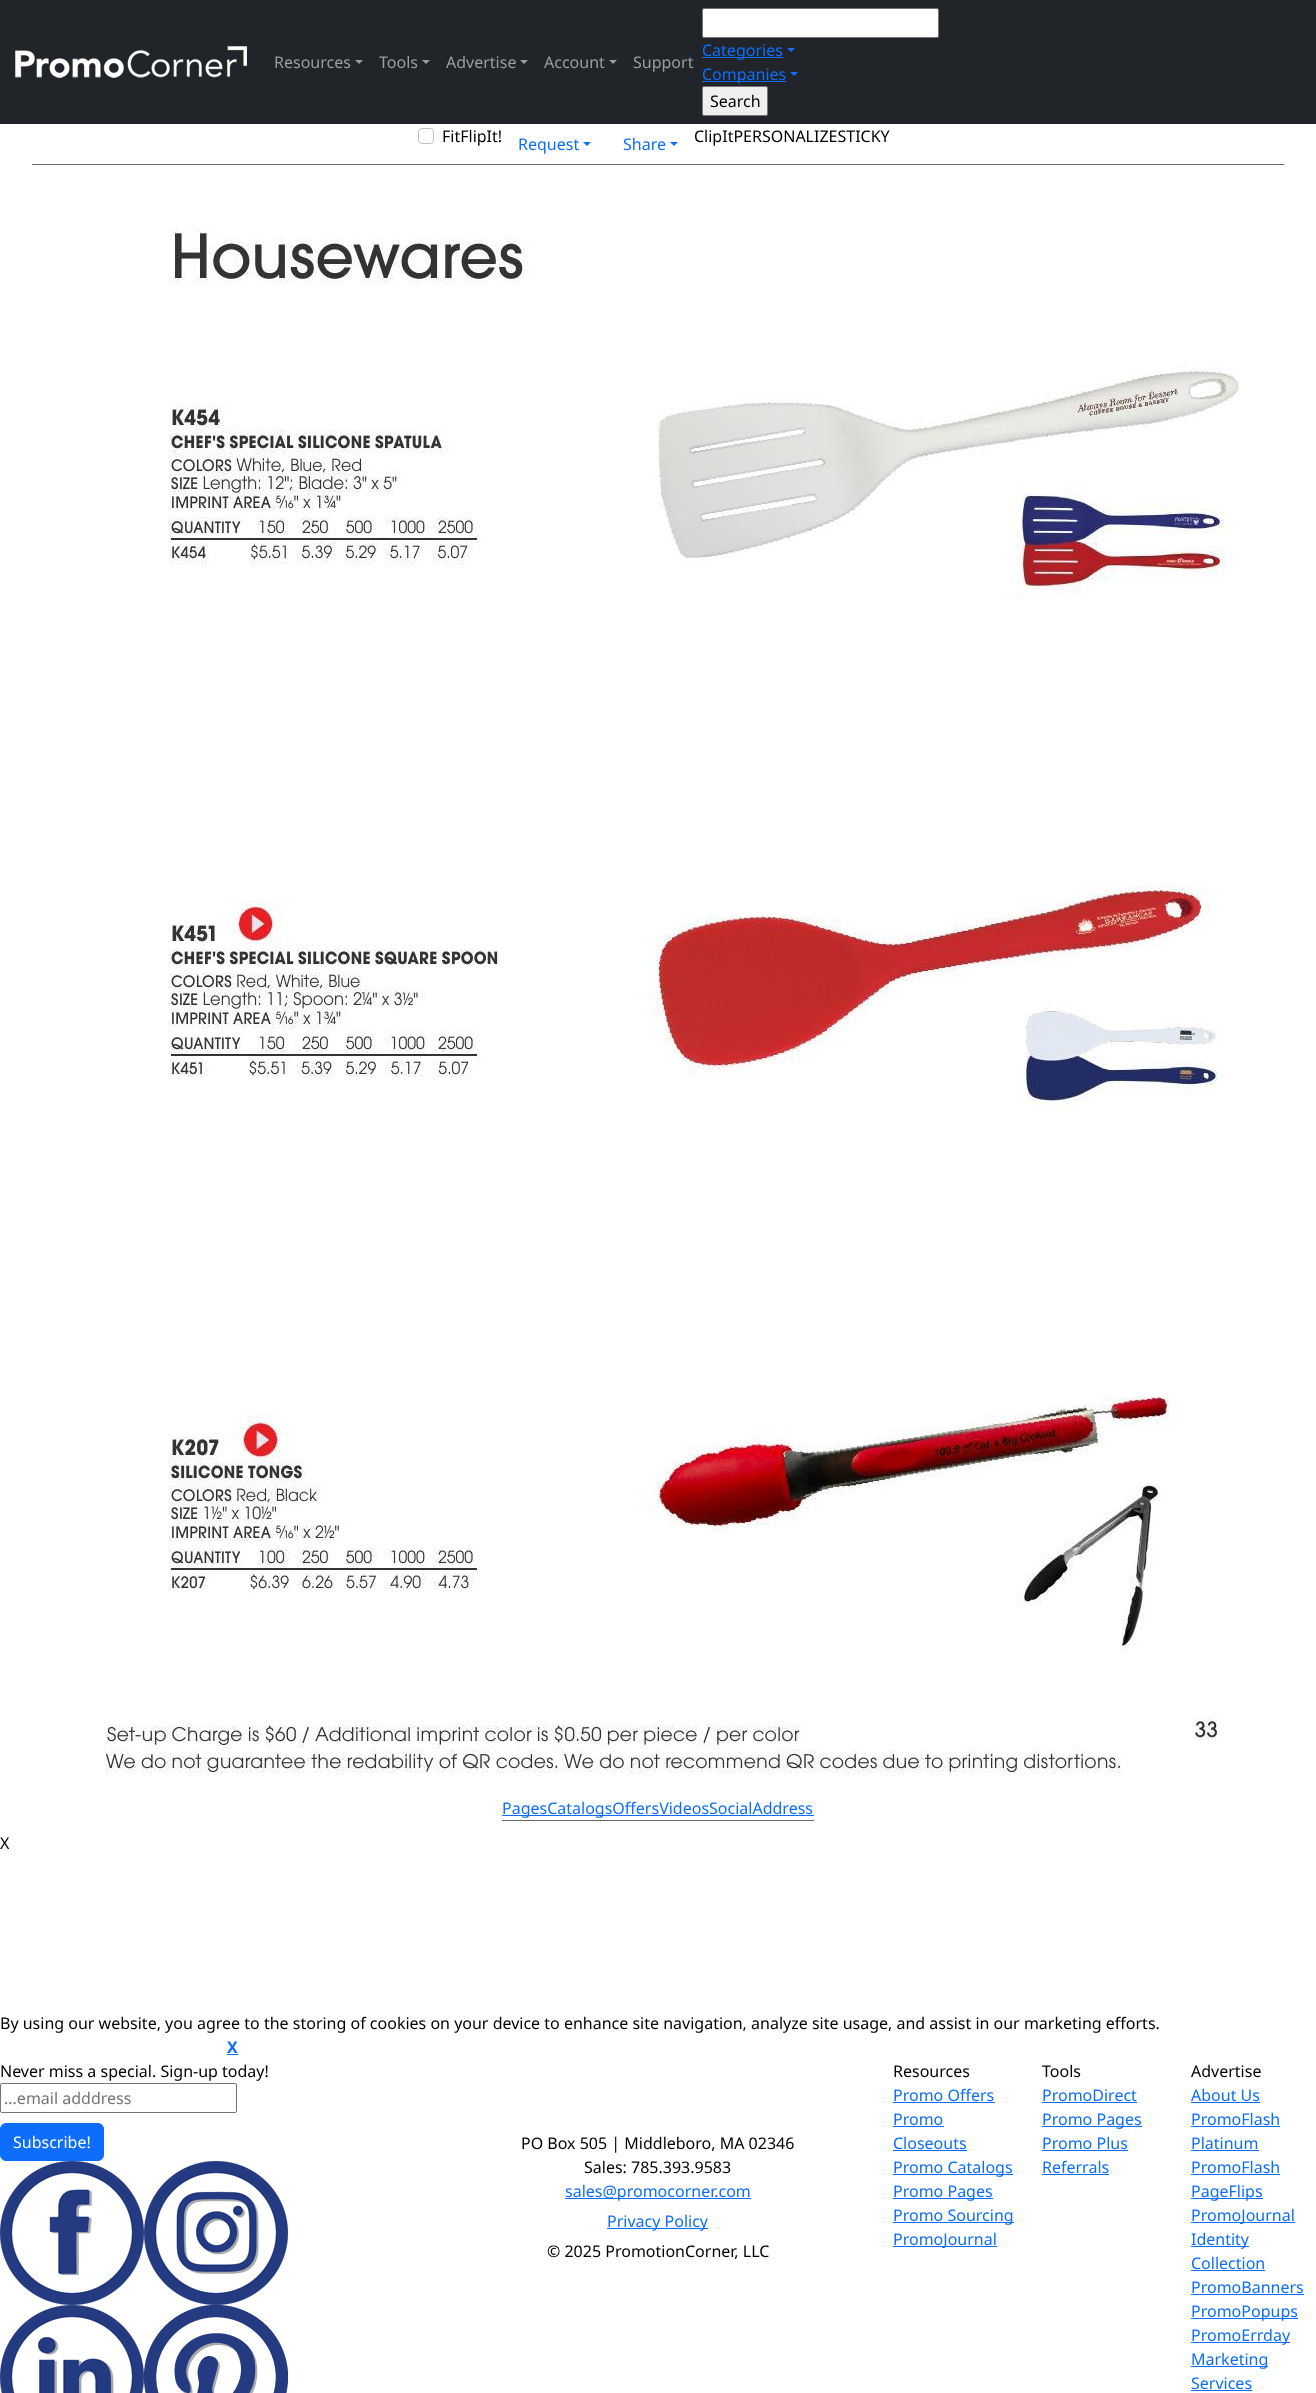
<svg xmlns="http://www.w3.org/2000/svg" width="1316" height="2393">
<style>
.a{font:16px Noto Sans;fill:#9b9d9f}
.b{font:16px Noto Sans;fill:#0d6efd}
.c{font:16px Noto Sans;fill:#000}
.d{font:bold 16px Noto Sans;fill:#0d6efd}
.e{font:16px Noto Sans;fill:#757575}
.f{font:16px Noto Sans;fill:#fff}
</style>
<rect width="100%" height="100%" fill="#fff"/>
<path fill="#212529" d="M0 0h1316v124H0z"/>
<image href="1.png" x="15" y="46" width="232" height="32"/>
<path fill="#9b9d9f" d="M355 60h8l-4 4z"/>
<path fill="#9b9d9f" d="M422 60h8l-4 4z"/>
<path fill="#9b9d9f" d="M520 60h8l-4 4z"/>
<path fill="#9b9d9f" d="M609 60h8l-4 4z"/>
<rect fill="#fff" stroke="#767676" x="702.5" y="8.5" width="236" height="29" rx="1.5"/>
<path fill="#0d6efd" d="M702 57h81v1H702z"/>
<path fill="#0d6efd" d="M787 48h8l-4 4z"/>
<path fill="#0d6efd" d="M702 81h84v1H702z"/>
<path fill="#0d6efd" d="M790 72h8l-4 4z"/>
<rect fill="#efefef" stroke="#767676" x="702.5" y="86.5" width="65" height="29" rx="1.5"/>
<path fill="#666" d="M32 164h1252v1H32z"/>
<rect fill="none" stroke="#bfbfbf" x="418.5" y="128.5" width="15" height="15" rx="3.5"/>
<path fill="#0d6efd" d="M583 142h8l-4 4z"/>
<path fill="#0d6efd" d="M670 142h8l-4 4z"/>
<image href="2.png" x="105" y="229" width="1136" height="1544"/>
<path fill="#666" d="M502 1820h312v1H502z"/>
<path fill="#0d6efd" d="M502 1815h312v1H502z"/>
<path fill="#0d6efd" d="M227 2054h11v1H227z"/>
<rect fill="none" stroke="#767676" x="0.5" y="2083.5" width="236" height="29" rx="1.5"/>
<rect fill="#0d6efd" stroke="#0d6efd" x="0.5" y="2123.5" width="103" height="37" rx="5.5"/>
<image href="3.png" x="0" y="2161" width="144" height="144"/>
<image href="4.png" x="144" y="2161" width="144" height="144"/>
<image href="5.png" x="0" y="2305" width="144" height="88"/>
<image href="6.png" x="144" y="2305" width="144" height="88"/>
<path fill="#0d6efd" d="M565 2198h186v1H565z"/>
<path fill="#0d6efd" d="M607 2228h101v1H607z"/>
<path fill="#0d6efd" d="M893 2102h102v1H893z"/>
<path fill="#0d6efd" d="M893 2126h51v1H893z"/>
<path fill="#0d6efd" d="M893 2150h74v1H893z"/>
<path fill="#0d6efd" d="M893 2174h120v1H893z"/>
<path fill="#0d6efd" d="M893 2198h100v1H893z"/>
<path fill="#0d6efd" d="M893 2222h121v1H893z"/>
<path fill="#0d6efd" d="M893 2246h104v1H893z"/>
<path fill="#0d6efd" d="M1042 2102h95v1H1042z"/>
<path fill="#0d6efd" d="M1042 2126h100v1H1042z"/>
<path fill="#0d6efd" d="M1042 2150h86v1H1042z"/>
<path fill="#0d6efd" d="M1042 2174h67v1H1042z"/>
<path fill="#0d6efd" d="M1191 2102h69v1H1191z"/>
<path fill="#0d6efd" d="M1191 2126h89v1H1191z"/>
<path fill="#0d6efd" d="M1191 2150h68v1H1191z"/>
<path fill="#0d6efd" d="M1191 2174h89v1H1191z"/>
<path fill="#0d6efd" d="M1191 2198h72v1H1191z"/>
<path fill="#0d6efd" d="M1191 2222h104v1H1191z"/>
<path fill="#0d6efd" d="M1191 2246h58v1H1191z"/>
<path fill="#0d6efd" d="M1191 2270h74v1H1191z"/>
<path fill="#0d6efd" d="M1191 2294h113v1H1191z"/>
<path fill="#0d6efd" d="M1191 2318h107v1H1191z"/>
<path fill="#0d6efd" d="M1191 2342h99v1H1191z"/>
<path fill="#0d6efd" d="M1191 2366h77v1H1191z"/>
<path fill="#0d6efd" d="M1191 2390h61v1H1191z"/>
<text class="a" x="274" y="68">Resources</text>
<text class="a" x="379" y="68">Tools</text>
<text class="a" x="446" y="68">Advertise</text>
<text class="a" x="544" y="68">Account</text>
<text class="a" x="633" y="68">Support</text>
<text class="b" x="702" y="56">Categories</text>
<text class="b" x="702" y="80">Companies</text>
<text class="c" x="710" y="107">Search</text>
<text class="c" x="442" y="142">FitFlipIt!</text>
<text class="b" x="518" y="150">Request</text>
<text class="b" x="623" y="150">Share</text>
<text class="c" x="694" y="142">ClipItPERSONALIZESTICKY</text>
<text class="b" x="502" y="1814">PagesCatalogsOffersVideosSocialAddress</text>
<text class="c" x="0" y="1849">X</text>
<text class="c" x="0" y="2029">By using our website, you agree to the storing of cookies on your device to enhance site navigation, analyze site usage, and assist in our marketing efforts.</text>
<text class="d" x="227" y="2053">X</text>
<text class="c" x="0" y="2077">Never miss a special. Sign-up today!</text>
<text class="e" x="4" y="2104">...email adddress</text>
<text class="f" x="13" y="2148">Subscribe!</text>
<text class="c" x="521" y="2149">PO Box 505 | Middleboro, MA 02346</text>
<text class="c" x="584" y="2173">Sales: 785.393.9583</text>
<text class="b" x="565" y="2197">sales@promocorner.com</text>
<text class="b" x="607" y="2227">Privacy Policy</text>
<text class="c" x="547" y="2257">© 2025 PromotionCorner, LLC</text>
<text class="c" x="893" y="2077">Resources</text>
<text class="b" x="893" y="2101">Promo Offers</text>
<text class="b" x="893" y="2125">Promo</text>
<text class="b" x="893" y="2149">Closeouts</text>
<text class="b" x="893" y="2173">Promo Catalogs</text>
<text class="b" x="893" y="2197">Promo Pages</text>
<text class="b" x="893" y="2221">Promo Sourcing</text>
<text class="b" x="893" y="2245">PromoJournal</text>
<text class="c" x="1042" y="2077">Tools</text>
<text class="b" x="1042" y="2101">PromoDirect</text>
<text class="b" x="1042" y="2125">Promo Pages</text>
<text class="b" x="1042" y="2149">Promo Plus</text>
<text class="b" x="1042" y="2173">Referrals</text>
<text class="c" x="1191" y="2077">Advertise</text>
<text class="b" x="1191" y="2101">About Us</text>
<text class="b" x="1191" y="2125">PromoFlash</text>
<text class="b" x="1191" y="2149">Platinum</text>
<text class="b" x="1191" y="2173">PromoFlash</text>
<text class="b" x="1191" y="2197">PageFlips</text>
<text class="b" x="1191" y="2221">PromoJournal</text>
<text class="b" x="1191" y="2245">Identity</text>
<text class="b" x="1191" y="2269">Collection</text>
<text class="b" x="1191" y="2293">PromoBanners</text>
<text class="b" x="1191" y="2317">PromoPopups</text>
<text class="b" x="1191" y="2341">PromoErrday</text>
<text class="b" x="1191" y="2365">Marketing</text>
<text class="b" x="1191" y="2389">Services</text>
</svg>
